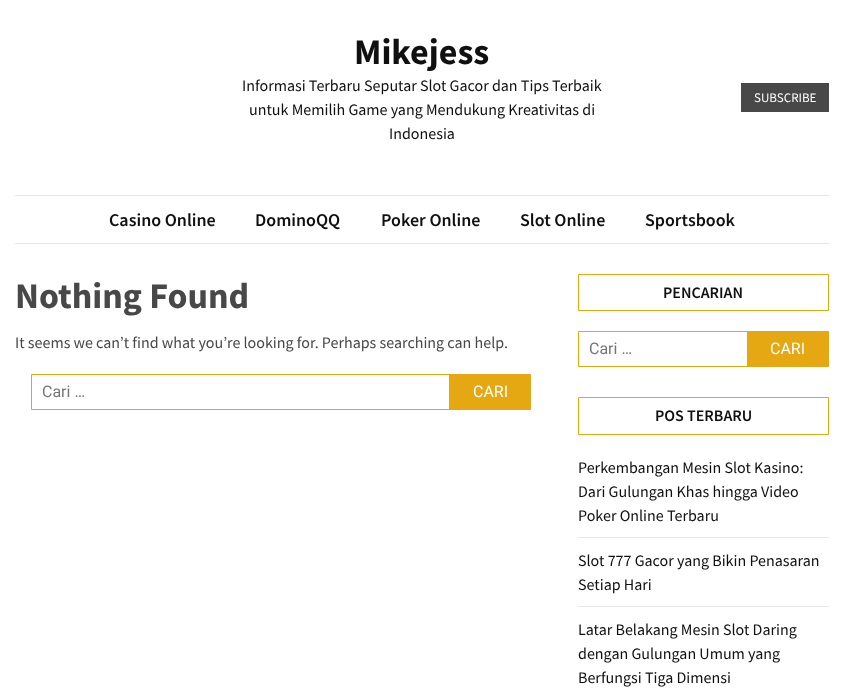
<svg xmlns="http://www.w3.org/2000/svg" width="844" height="697">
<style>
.a{font:bold 36px Source Sans Pro;fill:#101010}
.b{font:16px Source Sans Pro;fill:#101010}
.c{font:13px Source Sans Pro;fill:#fff}
.d{font:600 18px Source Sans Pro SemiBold;fill:#101010}
.e{font:bold 36px Source Sans Pro;fill:#484848}
.f{font:16px Source Sans Pro;fill:#484848}
.g{font:16px Roboto;fill:#757575}
.h{font:16px Roboto;fill:#fff}
.i{font:600 16px Source Sans Pro SemiBold;fill:#101010}
</style>
<rect width="100%" height="100%" fill="#fff"/>
<path fill="#484848" d="M741 83h88v29H741z"/>
<path fill="#e5e5e5" d="M15 195h814v1H15z"/>
<path fill="#e5e5e5" d="M15 243h814v1H15z"/>
<path fill="none" stroke="#e5a812" d="M31.5 374.5h499v35H31.5z"/>
<path fill="#e5a812" d="M449 375h81v34H449z"/>
<path fill="none" stroke="#e5a812" d="M578.5 274.5h250v36H578.5z"/>
<path fill="none" stroke="#e5a812" d="M578.5 331.5h250v35H578.5z"/>
<path fill="#e5a812" d="M747 332h81v34H747z"/>
<path fill="none" stroke="#e5a812" d="M578.5 397.5h250v37H578.5z"/>
<path fill="#e8e8e8" d="M578 537h251v1H578z"/>
<path fill="#e8e8e8" d="M578 606h251v1H578z"/>
<text class="a" x="354" y="64">Mikejess</text>
<text class="b" x="242" y="91">Informasi Terbaru Seputar Slot Gacor dan Tips Terbaik</text>
<text class="b" x="249" y="115">untuk Memilih Game yang Mendukung Kreativitas di</text>
<text class="b" x="389" y="139">Indonesia</text>
<text class="c" x="754" y="102">SUBSCRIBE</text>
<text class="d" x="109" y="226">Casino Online</text>
<text class="d" x="255" y="226">DominoQQ</text>
<text class="d" x="381" y="226">Poker Online</text>
<text class="d" x="520" y="226">Slot Online</text>
<text class="d" x="645" y="226">Sportsbook</text>
<text class="e" x="15" y="308">Nothing Found</text>
<text class="f" x="15" y="348">It seems we can’t find what you’re looking for. Perhaps searching can help.</text>
<text class="g" x="42" y="397">Cari …</text>
<text class="h" x="473" y="397">CARI</text>
<text class="i" x="663" y="298">PENCARIAN</text>
<text class="g" x="589" y="354">Cari …</text>
<text class="h" x="770" y="354">CARI</text>
<text class="i" x="655" y="421">POS TERBARU</text>
<text class="b" x="578" y="473">Perkembangan Mesin Slot Kasino:</text>
<text class="b" x="578" y="497">Dari Gulungan Khas hingga Video</text>
<text class="b" x="578" y="521">Poker Online Terbaru</text>
<text class="b" x="578" y="566">Slot 777 Gacor yang Bikin Penasaran</text>
<text class="b" x="578" y="590">Setiap Hari</text>
<text class="b" x="578" y="635">Latar Belakang Mesin Slot Daring</text>
<text class="b" x="578" y="659">dengan Gulungan Umum yang</text>
<text class="b" x="578" y="683">Berfungsi Tiga Dimensi</text>
</svg>
